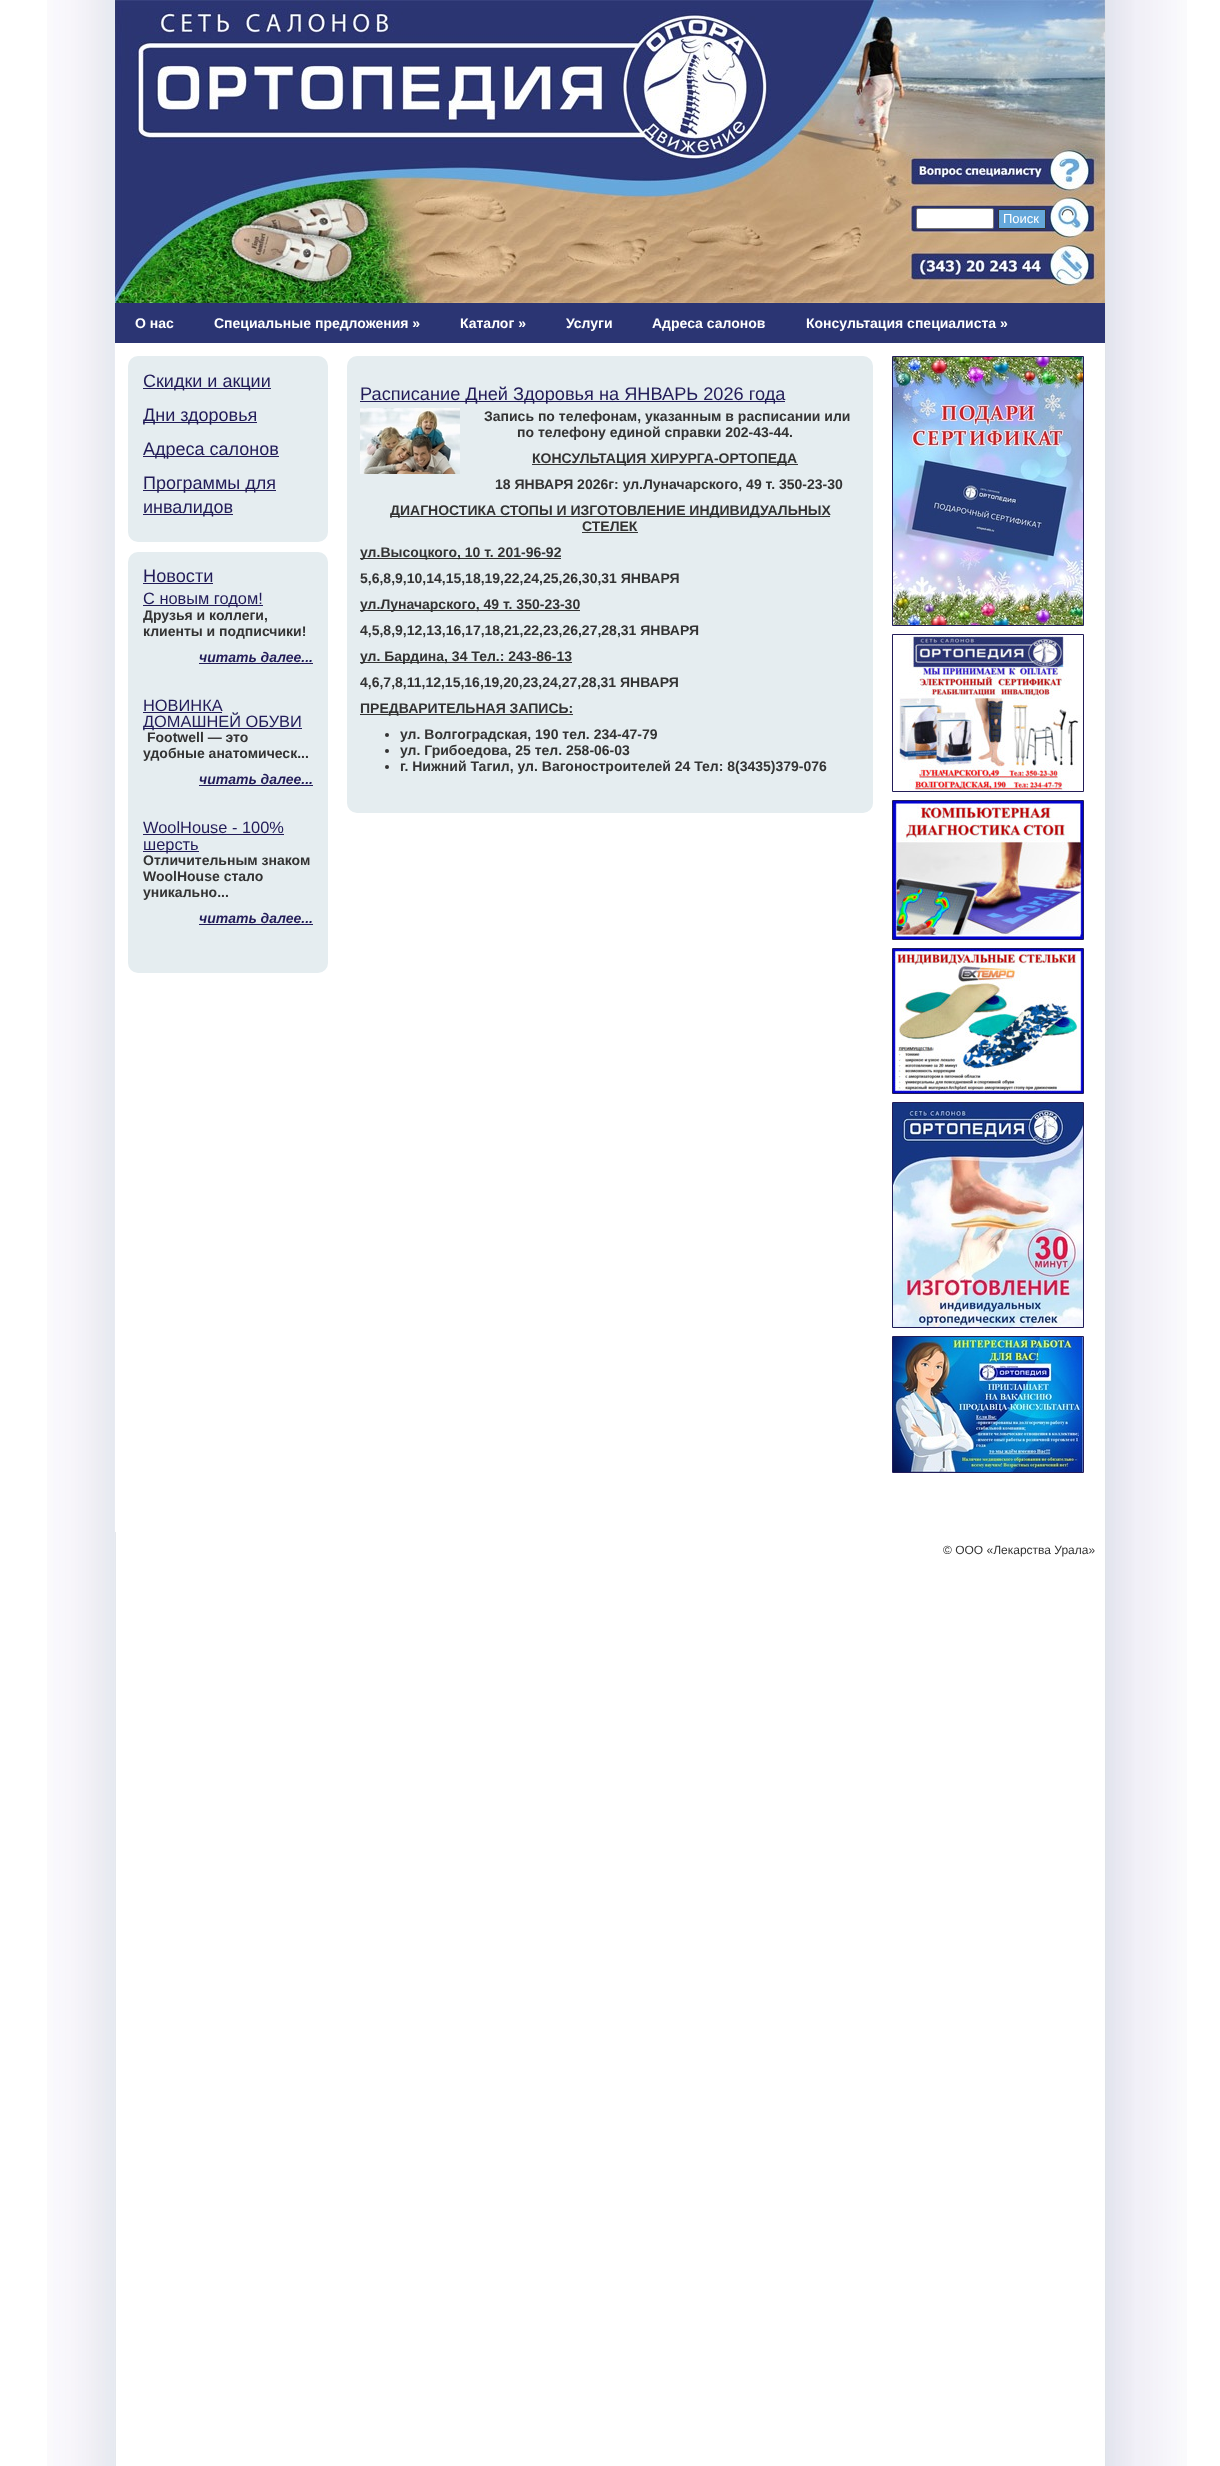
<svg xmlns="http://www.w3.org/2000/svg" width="1220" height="2466">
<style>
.a{font:13px Liberation Sans;fill:#fff}
.b{font:bold 14px Liberation Sans;fill:#fff}
.c{font:18px Liberation Sans;fill:#221c58}
.d{font:18.2px Liberation Sans;fill:#221c58}
.e{font:16.4px Liberation Sans;fill:#221c58}
.f{font:bold 14px Liberation Sans;fill:#333}
.g{font:italic bold 14px Liberation Sans;fill:#221c58}
.h{font:12px Liberation Sans;fill:#333}
</style>
<rect width="100%" height="100%" fill="#fff"/>
<image href="1.png" x="47" y="0" width="1140" height="2466"/>
<image href="2.png" x="115" y="0" width="791" height="303"/>
<image href="3.png" x="906" y="0" width="199" height="303"/>
<image href="4.png" x="906" y="146" width="199" height="48"/>
<rect fill="#fff" stroke="#767676" x="916.5" y="208.5" width="77" height="20" rx="1.5"/>
<path fill="#65a8db" stroke="#333" d="M998.5 209.5h47v19H998.5z"/>
<path fill="#2b3573" d="M115 303h990v40H115z"/>
<path fill="#fff" d="M115 343h1v1189H115z"/>
<rect fill="#e5edf0" x="128" y="356" width="200" height="186" rx="10"/>
<path fill="#221c58" d="M143 388h128v1H143z"/>
<path fill="#221c58" d="M143 422h114v1H143z"/>
<path fill="#221c58" d="M143 456h136v1H143z"/>
<path fill="#221c58" d="M143 490h133v1H143z"/>
<path fill="#221c58" d="M143 514h90v1H143z"/>
<rect fill="#e5edf0" x="128" y="552" width="200" height="421" rx="10"/>
<path fill="#221c58" d="M143 583h70v1H143z"/>
<path fill="#221c58" d="M143 605h120v1H143z"/>
<path fill="#221c58" d="M199 663h114v1H199z"/>
<path fill="#221c58" d="M143 712h79v1H143z"/>
<path fill="#221c58" d="M143 728h159v1H143z"/>
<path fill="#221c58" d="M199 785h114v1H199z"/>
<path fill="#221c58" d="M143 834h141v1H143z"/>
<path fill="#221c58" d="M143 851h56v1H143z"/>
<path fill="#221c58" d="M199 924h114v1H199z"/>
<rect fill="#e5edf0" x="347" y="356" width="526" height="457" rx="10"/>
<path fill="#221c58" d="M360 401h425v1H360z"/>
<image href="5.png" x="360" y="408" width="100" height="66"/>
<path fill="#333" d="M532 464h266v1H532z"/>
<path fill="#333" d="M390 516h440v1H390z"/>
<path fill="#333" d="M582 532h56v1H582z"/>
<path fill="#333" d="M360 558h201v1H360z"/>
<path fill="#333" d="M360 610h220v1H360z"/>
<path fill="#333" d="M360 662h212v1H360z"/>
<path fill="#333" d="M360 714h213v1H360z"/>
<circle fill="#333" cx="387" cy="735" r="2"/>
<circle fill="#333" cx="387" cy="751" r="2"/>
<circle fill="#333" cx="387" cy="767" r="2"/>
<path fill="none" stroke="#221c58" d="M892.5 356.5h191v269H892.5z"/>
<image href="6.png" x="893" y="357" width="190" height="268"/>
<path fill="none" stroke="#221c58" d="M892.5 634.5h191v157H892.5z"/>
<image href="7.png" x="893" y="635" width="189" height="156"/>
<path fill="none" stroke="#221c58" d="M892.5 800.5h191v139H892.5z"/>
<image href="8.png" x="893" y="801" width="190" height="138"/>
<path fill="none" stroke="#221c58" d="M892.5 948.5h191v145H892.5z"/>
<image href="9.png" x="893" y="949" width="190" height="144"/>
<path fill="none" stroke="#221c58" d="M892.5 1102.5h191v225H892.5z"/>
<image href="10.png" x="893" y="1103" width="190" height="224"/>
<path fill="none" stroke="#221c58" d="M892.5 1336.5h191v136H892.5z"/>
<image href="11.png" x="893" y="1337" width="190" height="135"/>
<text class="a" x="1003" y="223">Поиск</text>
<text class="b" x="135" y="328">О нас</text>
<text class="b" x="214" y="328">Специальные предложения »</text>
<text class="b" x="460" y="328">Каталог »</text>
<text class="b" x="566" y="328">Услуги</text>
<text class="b" x="652" y="328">Адреса салонов</text>
<text class="b" x="806" y="328">Консультация специалиста »</text>
<text class="c" x="143" y="387">Скидки и акции</text>
<text class="c" x="143" y="421">Дни здоровья</text>
<text class="c" x="143" y="455">Адреса салонов</text>
<text class="c" x="143" y="489">Программы для</text>
<text class="c" x="143" y="513">инвалидов</text>
<text class="d" x="143" y="582">Новости</text>
<text class="e" x="143" y="604">С новым годом!</text>
<text class="f" x="143" y="620">Друзья и коллеги,</text>
<text class="f" x="143" y="636">клиенты и подписчики!</text>
<text class="g" x="199" y="662">читать далее...</text>
<text class="e" x="143" y="711">НОВИНКА</text>
<text class="e" x="143" y="727">ДОМАШНЕЙ ОБУВИ</text>
<text class="f" x="147" y="742">Footwell — это</text>
<text class="f" x="143" y="758">удобные анатомическ...</text>
<text class="g" x="199" y="784">читать далее...</text>
<text class="e" x="143" y="833">WoolHouse - 100%</text>
<text class="e" x="143" y="850">шерсть</text>
<text class="f" x="143" y="865">Отличительным знаком</text>
<text class="f" x="143" y="881">WoolHouse стало</text>
<text class="f" x="143" y="897">уникально...</text>
<text class="g" x="199" y="923">читать далее...</text>
<text class="d" x="360" y="400">Расписание Дней Здоровья на ЯНВАРЬ 2026 года</text>
<text class="f" x="484" y="421">Запись по телефонам, указанным в расписании или</text>
<text class="f" x="517" y="437">по телефону единой справки 202-43-44.</text>
<text class="f" x="532" y="463">КОНСУЛЬТАЦИЯ ХИРУРГА-ОРТОПЕДА</text>
<text class="f" x="495" y="489">18 ЯНВАРЯ 2026г: ул.Луначарского, 49 т. 350-23-30</text>
<text class="f" x="390" y="515">ДИАГНОСТИКА СТОПЫ И ИЗГОТОВЛЕНИЕ ИНДИВИДУАЛЬНЫХ</text>
<text class="f" x="582" y="531">СТЕЛЕК</text>
<text class="f" x="360" y="557">ул.Высоцкого, 10 т. 201-96-92</text>
<text class="f" x="360" y="583">5,6,8,9,10,14,15,18,19,22,24,25,26,30,31 ЯНВАРЯ</text>
<text class="f" x="360" y="609">ул.Луначарского, 49 т. 350-23-30</text>
<text class="f" x="360" y="635">4,5,8,9,12,13,16,17,18,21,22,23,26,27,28,31 ЯНВАРЯ</text>
<text class="f" x="360" y="661">ул. Бардина, 34 Тел.: 243-86-13</text>
<text class="f" x="360" y="687">4,6,7,8,11,12,15,16,19,20,23,24,27,28,31 ЯНВАРЯ</text>
<text class="f" x="360" y="713">ПРЕДВАРИТЕЛЬНАЯ ЗАПИСЬ:</text>
<text class="f" x="400" y="739">ул. Волгоградская, 190 тел. 234-47-79</text>
<text class="f" x="400" y="755">ул. Грибоедова, 25 тел. 258-06-03</text>
<text class="f" x="400" y="771">г. Нижний Тагил, ул. Вагоностроителей 24 Тел: 8(3435)379-076</text>
<text class="h" x="943" y="1554">© ООО «Лекарства Урала»</text>
</svg>
